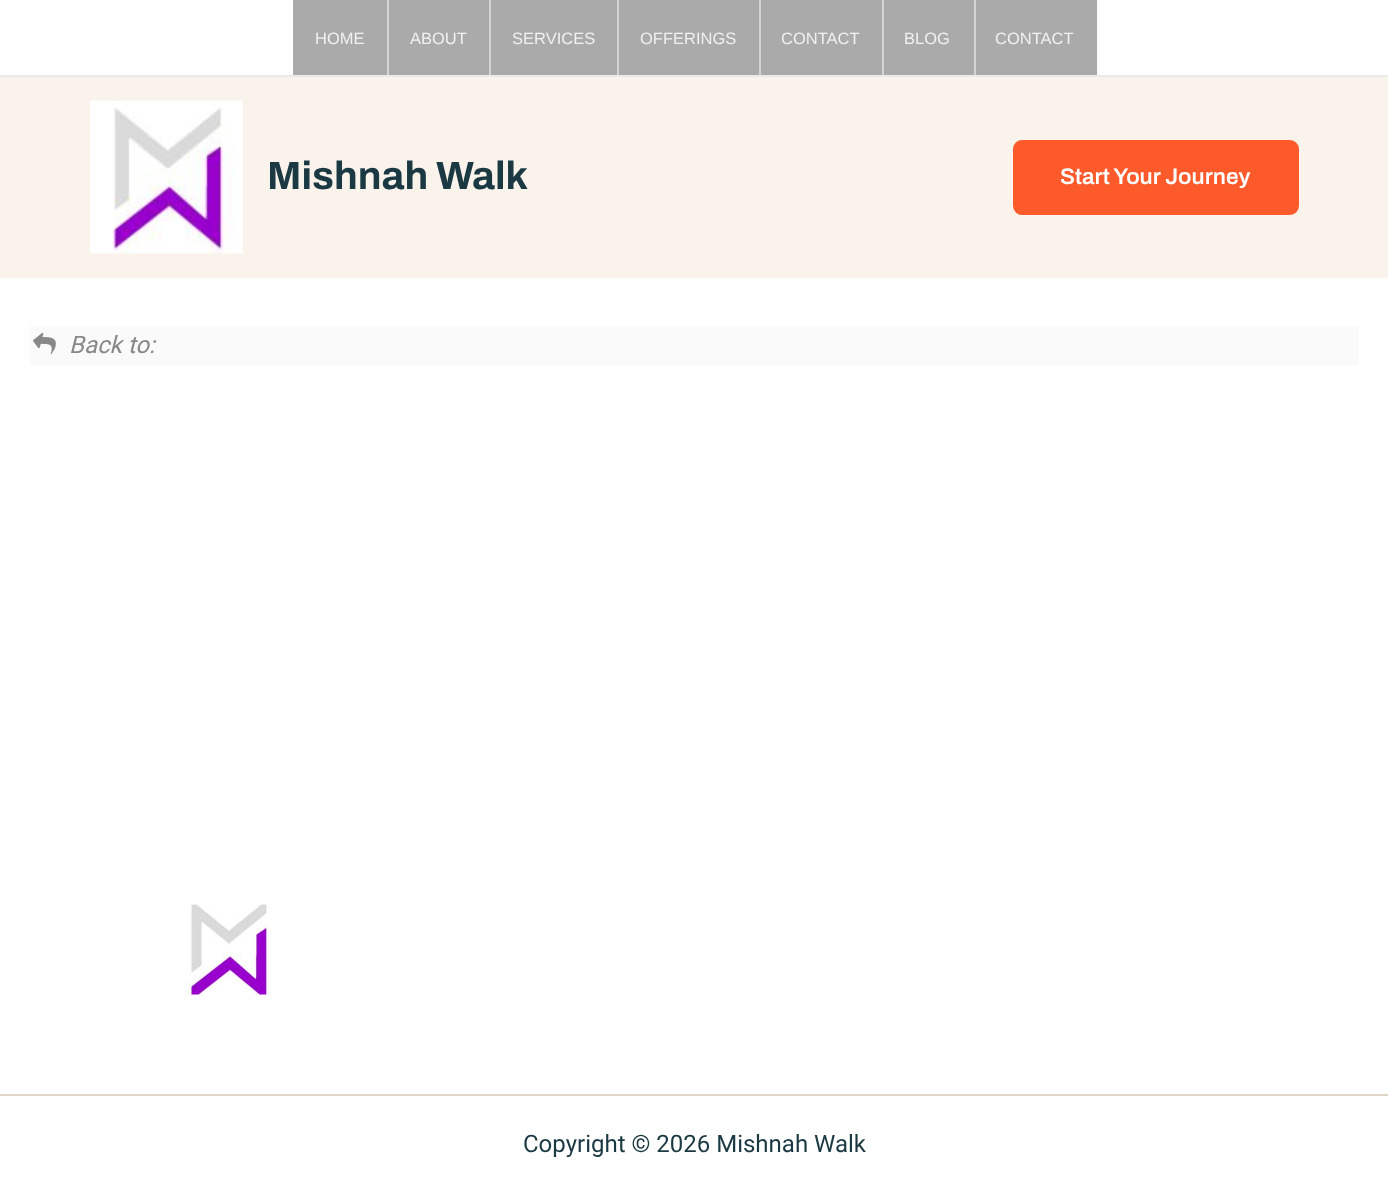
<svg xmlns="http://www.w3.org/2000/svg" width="1388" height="1199">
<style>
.a{font:16.5px Liberation Sans;fill:#f1f1f1}
.b{font:bold 39.5px Archivo;fill:#1b3942}
.c{font:600 22.5px Archivo;fill:#fff}
.d{font:italic 24px Roboto;fill:#888}
.e{font:24px Roboto;fill:#1b3942}
</style>
<rect width="100%" height="100%" fill="#fff"/>
<path fill="#eaeaea" d="M0 75h1388v2H0z"/>
<path fill="#aaa" d="M293 0h804v75H293z"/>
<path fill="#d5d5d5" d="M387 0h2v75H387z"/>
<path fill="#d5d5d5" d="M489 0h2v75H489z"/>
<path fill="#d5d5d5" d="M617 0h2v75H617z"/>
<path fill="#d5d5d5" d="M759 0h2v75H759z"/>
<path fill="#d5d5d5" d="M882 0h2v75H882z"/>
<path fill="#d5d5d5" d="M974 0h2v75H974z"/>
<path fill="#f9f3eb" d="M0 77h1388v201H0z"/>
<image href="1.png" x="90" y="100" width="153" height="154"/>
<rect fill="#fd5a2b" stroke="#fd5a2b" stroke-width="3" x="1014.5" y="141.5" width="283" height="72" rx="7.5"/>
<path fill="#fafafa" d="M30 326h1329v39H30z"/>
<image href="2.png" x="33" y="332" width="23" height="23"/>
<image href="3.png" x="184" y="904" width="86" height="91"/>
<path fill="#e0d7cb" d="M0 1094h1388v2H0z"/>
<text class="a" x="315" y="44">HOME</text>
<text class="a" x="410" y="44">ABOUT</text>
<text class="a" x="512" y="44">SERVICES</text>
<text class="a" x="640" y="44">OFFERINGS</text>
<text class="a" x="781" y="44">CONTACT</text>
<text class="a" x="904" y="44">BLOG</text>
<text class="a" x="995" y="44">CONTACT</text>
<text class="b" x="267" y="189">Mishnah Walk</text>
<text class="c" x="1060" y="184">Start Your Journey</text>
<text class="d" x="69" y="353">Back to:</text>
<text class="e" x="523" y="1152">Copyright © 2026 Mishnah Walk</text>
</svg>
